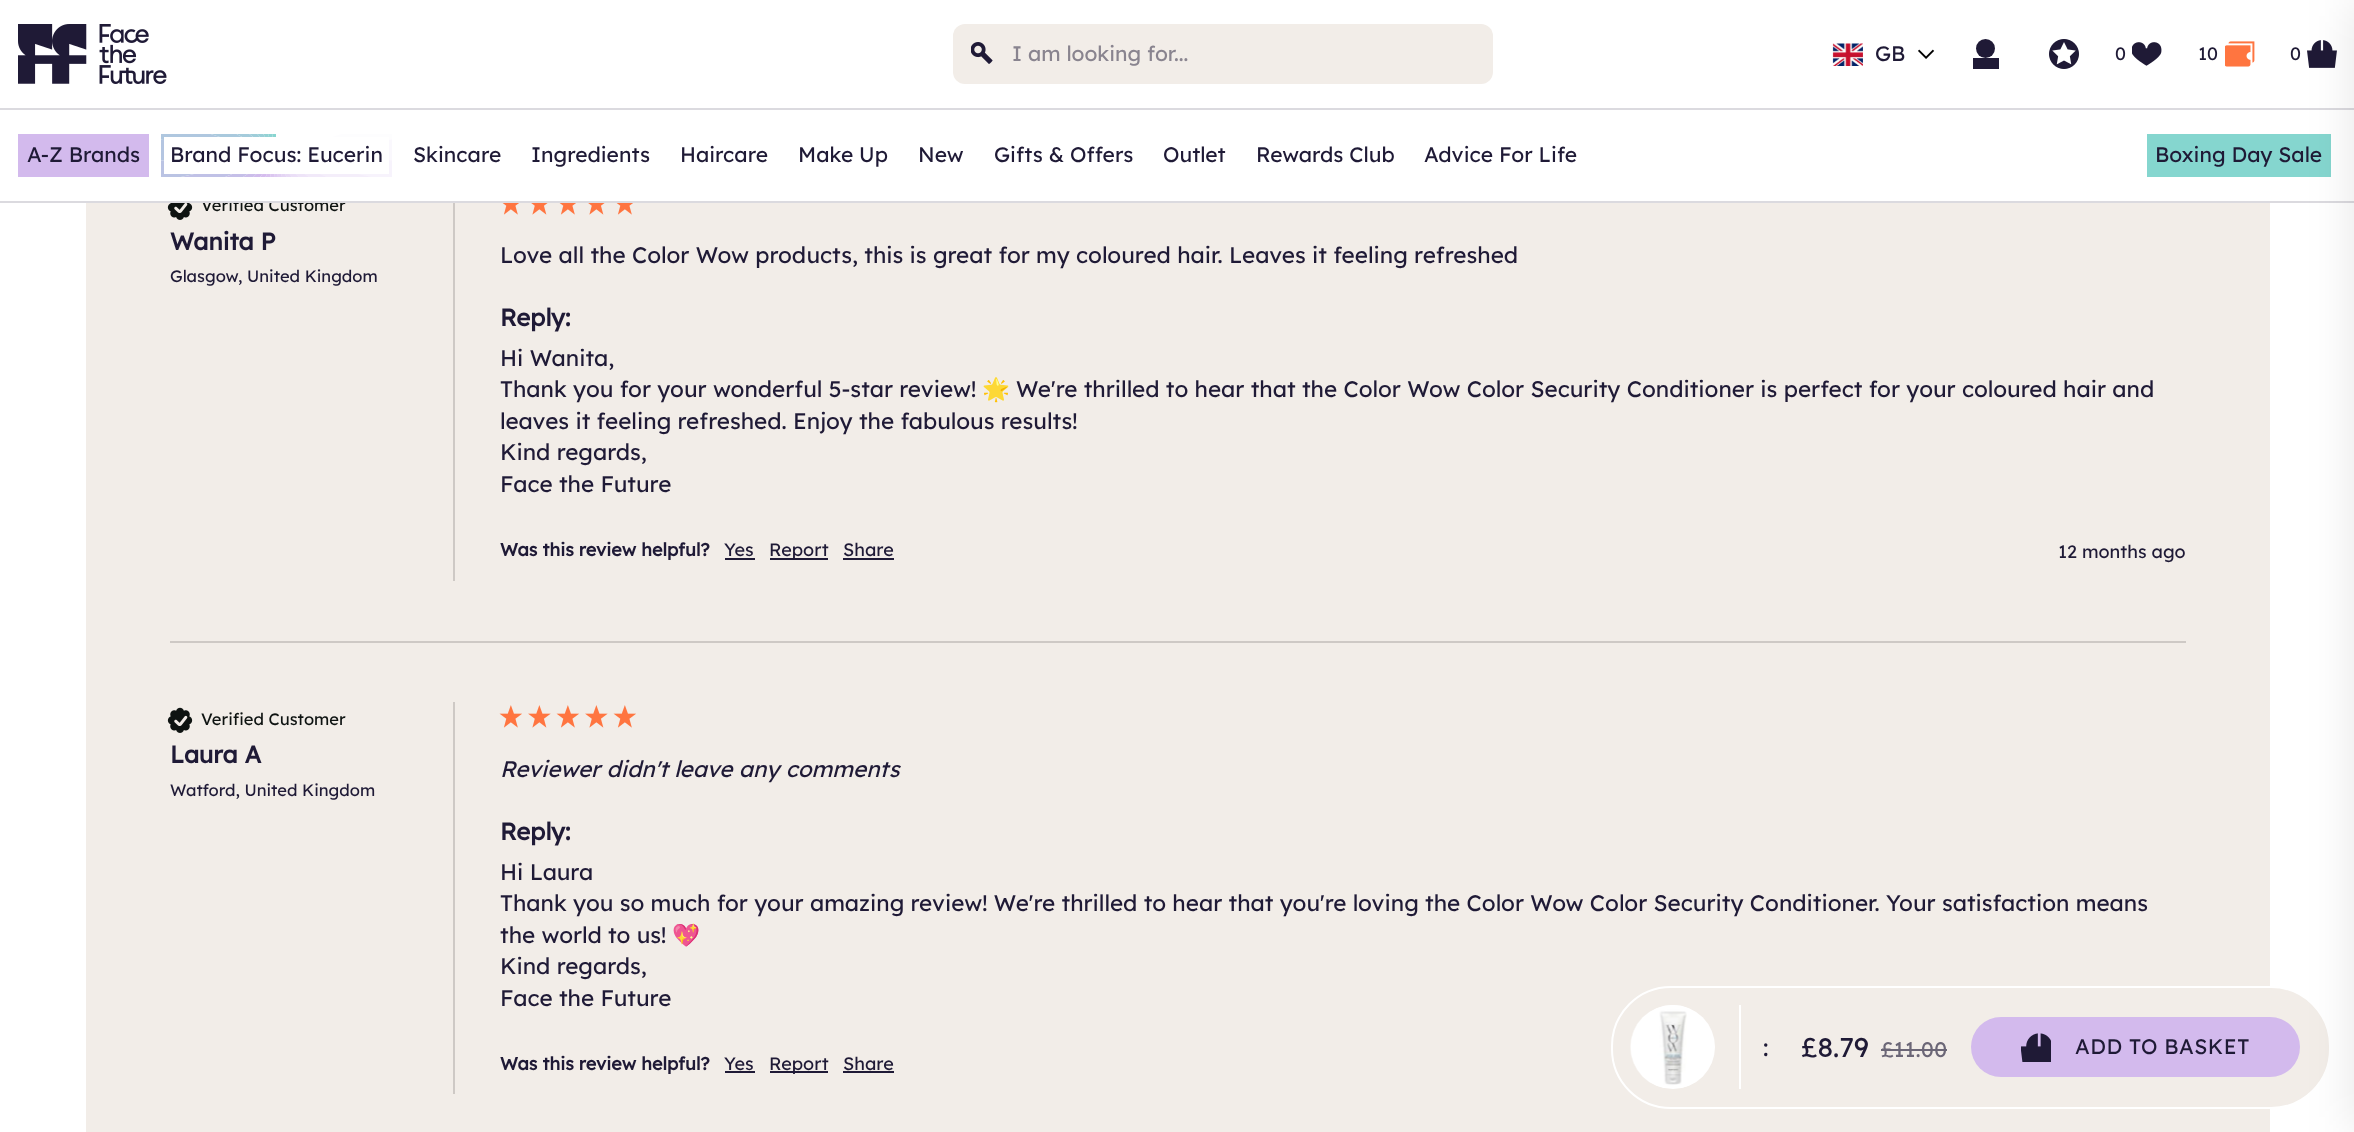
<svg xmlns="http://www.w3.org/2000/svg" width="2354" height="1132">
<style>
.a{font:21px Lexend;fill:#89848f}
.b{font:21px Lexend;fill:#1f1a36}
.c{font:18px Lexend;fill:#1f1a36}
.d{font:16.5px Lexend;fill:#0e1311}
.e{font:bold 24px Lexend;fill:#1f1a36}
.f{font:16.5px Lexend;fill:#1f1a36}
.g{font:22.5px Lexend;fill:#1f1a36}
.h{font:22.5px Noto Color Emoji;fill:#1f1a36}
.i{font:bold 18px Lexend;fill:#1f1a36}
.j{font:italic 22.5px Lexend;fill:#1f1a36}
.k{font:24px Lexend;fill:#1f1a36}
.l{font:27px Lexend;fill:#1f1a36}
.m{font:21px Lexend;letter-spacing:0.5px;fill:#6b6676}
.n{font:21px Lexend;letter-spacing:0.5px;fill:#1f1a36}
</style>
<rect width="100%" height="100%" fill="#fff"/>
<image href="1.png" x="18" y="24" width="149" height="60"/>
<rect fill="#f2ede8" x="953" y="24" width="540" height="60" rx="12"/>
<image href="2.png" x="971" y="42" width="22" height="22"/>
<image href="3.png" x="1832" y="43" width="31" height="23"/>
<image href="4.png" x="1918" y="49" width="17" height="10"/>
<circle fill="#1f1a36" cx="1985.5" cy="48.5" r="9.5"/>
<path fill="#1f1a36" d="M1973 58h26v11H1973z"/>
<image href="5.png" x="2049" y="39" width="30" height="30"/>
<image href="6.png" x="2132" y="42" width="30" height="24"/>
<image href="7.png" x="2225" y="41" width="30" height="26"/>
<image href="8.png" x="2307" y="40" width="30" height="28"/>
<path fill="#dbdadf" d="M0 108h2354v2H0z"/>
<path fill="#d3baed" d="M18 134h131v43H18z"/>
<image href="9.png" x="161" y="134" width="231" height="43"/>
<path fill="#fff" d="M164 137h225v37H164z"/>
<path fill="#85d6cf" d="M2147 134h184v43H2147z"/>
<path fill="#f2ede8" d="M86 203h2184v929H86z"/>
<path fill="#cec9c5" d="M170 641h2016v2H170z"/>
<path fill="#cec9c5" d="M453 203h2v378H453z"/>
<image href="10.png" x="167" y="203" width="26" height="17"/>
<image href="11.png" x="502" y="203" width="17" height="12"/>
<image href="12.png" x="531" y="203" width="17" height="12"/>
<image href="11.png" x="559" y="203" width="17" height="12"/>
<image href="12.png" x="588" y="203" width="17" height="12"/>
<image href="11.png" x="616" y="203" width="17" height="12"/>
<path fill="#1f1a36" d="M725 558h30v2H725z"/>
<path fill="#1f1a36" d="M770 558h58v2H770z"/>
<path fill="#1f1a36" d="M843 558h51v2H843z"/>
<path fill="#cec9c5" d="M453 702h2v392H453z"/>
<image href="13.png" x="167" y="707" width="26" height="26"/>
<image href="14.png" x="499" y="705" width="23" height="23"/>
<image href="15.png" x="528" y="705" width="23" height="23"/>
<image href="14.png" x="556" y="705" width="23" height="23"/>
<image href="15.png" x="585" y="705" width="23" height="23"/>
<image href="14.png" x="613" y="705" width="23" height="23"/>
<path fill="#1f1a36" d="M725 1071h30v2H725z"/>
<path fill="#1f1a36" d="M770 1071h58v2H770z"/>
<path fill="#1f1a36" d="M843 1071h51v2H843z"/>
<rect fill="#f2ede8" stroke="#fff" stroke-width="2" x="1612" y="987" width="718" height="121" rx="59"/>
<circle fill="#fff" cx="1673" cy="1047" r="42"/>
<image href="16.png" x="1630" y="1005" width="57" height="83"/>
<path fill="#fff" d="M1739 1005h2v84H1739z"/>
<path fill="#6b6676" d="M1881 1049h66v2H1881z"/>
<rect fill="#d3baed" x="1971" y="1017" width="329" height="60" rx="30"/>
<image href="17.png" x="2021" y="1033" width="30" height="29"/>
<text class="a" x="1012" y="61">I am looking for...</text>
<text class="b" x="1875" y="61">GB</text>
<text class="c" x="2115" y="60">0</text>
<text class="c" x="2198" y="60">10</text>
<text class="c" x="2290" y="60">0</text>
<text class="b" x="27" y="162">A-Z Brands</text>
<text class="b" x="170" y="162">Brand Focus: Eucerin</text>
<text class="b" x="413" y="162">Skincare</text>
<text class="b" x="531" y="162">Ingredients</text>
<text class="b" x="680" y="162">Haircare</text>
<text class="b" x="798" y="162">Make Up</text>
<text class="b" x="918" y="162">New</text>
<text class="b" x="994" y="162">Gifts &amp; Offers</text>
<text class="b" x="1163" y="162">Outlet</text>
<text class="b" x="1256" y="162">Rewards Club</text>
<text class="b" x="1424" y="162">Advice For Life</text>
<text class="b" x="2155" y="162">Boxing Day Sale</text>
<text class="d" x="201" y="211">Verified Customer</text>
<path fill="#dbdadf" d="M0 201h2354v2H0z"/>
<path fill="#0000001a" filter="blur(24px)" d="M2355 0h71v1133H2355z"/>
<path fill="#fff" d="M201 198h101v3H201z"/>
<text class="e" x="170" y="250">Wanita P</text>
<text class="f" x="170" y="282">Glasgow, United Kingdom</text>
<text class="g" x="500" y="263">Love all the Color Wow products, this is great for my coloured hair. Leaves it feeling refreshed</text>
<text class="e" x="500" y="326">Reply:</text>
<text class="g" x="500" y="366">Hi Wanita,</text>
<text class="g" x="500" y="397">Thank you for your wonderful 5-star review!</text>
<text class="h" x="982" y="397">🌟</text>
<text class="g" x="1016" y="397">We're thrilled to hear that the Color Wow Color Security Conditioner is perfect for your coloured hair and</text>
<text class="g" x="500" y="429">leaves it feeling refreshed. Enjoy the fabulous results!</text>
<text class="g" x="500" y="460">Kind regards,</text>
<text class="g" x="500" y="492">Face the Future</text>
<text class="i" x="500" y="556">Was this review helpful?</text>
<text class="c" x="724" y="556">Yes</text>
<text class="c" x="769" y="556">Report</text>
<text class="c" x="843" y="556">Share</text>
<text class="c" x="2058" y="558">12 months ago</text>
<text class="d" x="201" y="725">Verified Customer</text>
<text class="e" x="170" y="763">Laura A</text>
<text class="f" x="170" y="796">Watford, United Kingdom</text>
<text class="j" x="500" y="777">Reviewer didn't leave any comments</text>
<text class="e" x="500" y="840">Reply:</text>
<text class="g" x="500" y="880">Hi Laura</text>
<text class="g" x="500" y="911">Thank you so much for your amazing review! We're thrilled to hear that you're loving the Color Wow Color Security Conditioner. Your satisfaction means</text>
<text class="g" x="500" y="943">the world to us!</text>
<text class="h" x="672" y="943">💖</text>
<text class="g" x="500" y="974">Kind regards,</text>
<text class="g" x="500" y="1006">Face the Future</text>
<text class="i" x="500" y="1070">Was this review helpful?</text>
<text class="c" x="724" y="1070">Yes</text>
<text class="c" x="769" y="1070">Report</text>
<text class="c" x="843" y="1070">Share</text>
<text class="k" x="1763" y="1056">:</text>
<text class="l" x="1801" y="1057">£8.79</text>
<text class="m" x="1881" y="1057">£11.00</text>
<text class="n" x="2075" y="1054">ADD TO BASKET</text>
</svg>
